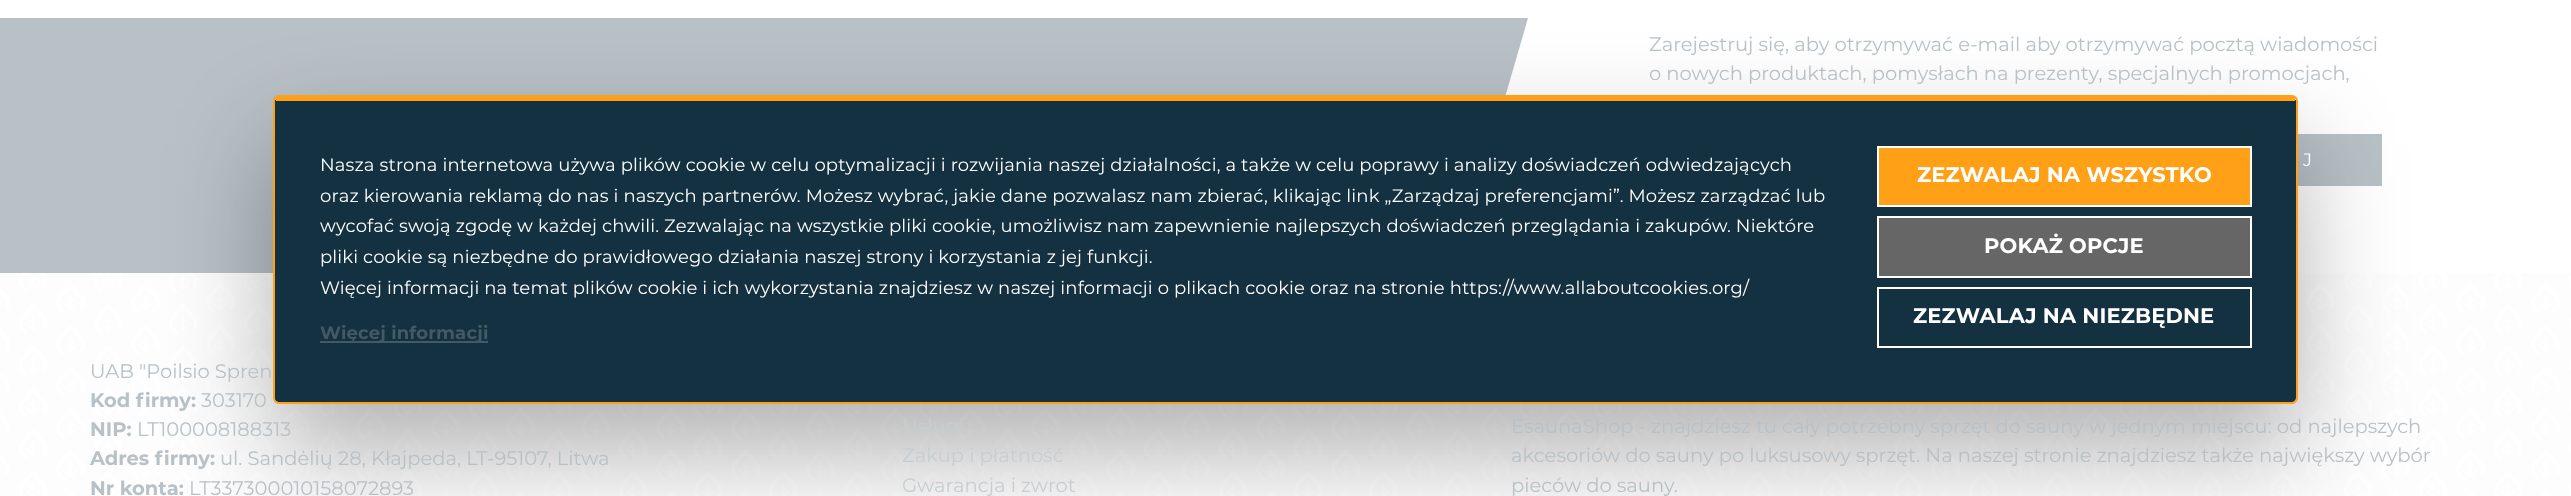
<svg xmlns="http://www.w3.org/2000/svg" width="2571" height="496">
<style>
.a{font:19.5px Montserrat;fill:#b8c1c6}
.b{font:18px Montserrat;fill:#fff}
.c{font:bold 19.5px Montserrat;fill:#b8c1c6}
.d{font:19.5px Montserrat;fill:#c6ced1}
.e{font:18px Montserrat;letter-spacing:0.15px;fill:#fff}
.f{font:bold 18px Montserrat;letter-spacing:0.15px;fill:#425a66}
.g{font:bold 21px Montserrat;letter-spacing:0.15px;fill:#fff}
</style>
<rect width="100%" height="100%" fill="#fff"/>
<path fill="#b8c1c6" d="M-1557 18h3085l-74 255h-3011z"/>
<path fill="#b8c1c6" d="M2298 134h84v52H2298z"/>
<image href="1.png" x="0" y="273" width="2571" height="223"/>
<rect fill="#0000004d" filter="blur(51px)" x="273" y="143" width="2025" height="309" rx="6"/>
<path fill="#133140" d="M279 100h2017v298c0 2-2 4-4 4h-2013c-2 0-5-2-5-4v-298z"/>
<rect fill="none" stroke="#ffa017" stroke-width="2" x="274" y="96" width="2023" height="307" rx="5"/>
<path fill="#ffa017" d="M276 97h2019v4H276z"/>
<path fill="#425a66" d="M320 341h168v2H320z"/>
<path fill="#ffa017" stroke="#fff" stroke-width="2" d="M1878 147h373v59H1878z"/>
<path fill="#666" stroke="#fff" stroke-width="2" d="M1878 217h373v60H1878z"/>
<path fill="none" stroke="#fff" stroke-width="2" d="M1878 288h373v59H1878z"/>
<text class="a" x="1649" y="51">Zarejestruj się, aby otrzymywać e-mail aby otrzymywać pocztą wiadomości</text>
<text class="a" x="1649" y="80">o nowych produktach, pomysłach na prezenty, specjalnych promocjach,</text>
<text class="b" x="2303" y="166">J</text>
<text class="a" x="90" y="378">UAB "Poilsio Spren</text>
<text class="c" x="90" y="407">Kod firmy:</text>
<text class="a" x="201" y="407">303170</text>
<text class="c" x="90" y="436">NIP:</text>
<text class="a" x="137" y="436">LT100008188313</text>
<text class="c" x="90" y="465">Adres firmy:</text>
<text class="a" x="220" y="465">ul. Sandėlių 28, Kłajpeda, LT-95107, Litwa</text>
<text class="c" x="90" y="495">Nr konta:</text>
<text class="a" x="189" y="495">LT337300010158072893</text>
<text class="d" x="902" y="433">Usługi</text>
<text class="d" x="902" y="462">Zakup i płatność</text>
<text class="d" x="902" y="492">Gwarancja i zwrot</text>
<text class="a" x="1511" y="433">EsaunaShop - znajdziesz tu cały potrzebny sprzęt do sauny w jednym miejscu: od najlepszych</text>
<text class="a" x="1511" y="462">akcesoriów do sauny po luksusowy sprzęt. Na naszej stronie znajdziesz także największy wybór</text>
<text class="a" x="1511" y="492">pieców do sauny.</text>
<text class="e" x="320" y="171">Nasza strona internetowa używa plików cookie w celu optymalizacji i rozwijania naszej działalności, a także w celu poprawy i analizy doświadczeń odwiedzających</text>
<text class="e" x="320" y="202">oraz kierowania reklamą do nas i naszych partnerów. Możesz wybrać, jakie dane pozwalasz nam zbierać, klikając link „Zarządzaj preferencjami”. Możesz zarządzać lub</text>
<text class="e" x="320" y="232">wycofać swoją zgodę w każdej chwili. Zezwalając na wszystkie pliki cookie, umożliwisz nam zapewnienie najlepszych doświadczeń przeglądania i zakupów. Niektóre</text>
<text class="e" x="320" y="263">pliki cookie są niezbędne do prawidłowego działania naszej strony i korzystania z jej funkcji.</text>
<text class="e" x="320" y="294">Więcej informacji na temat plików cookie i ich wykorzystania znajdziesz w naszej informacji o plikach cookie oraz na stronie https://www.allaboutcookies.org/</text>
<text class="f" x="320" y="339">Więcej informacji</text>
<text class="g" x="1917" y="182">ZEZWALAJ NA WSZYSTKO</text>
<text class="g" x="1984" y="253">POKAŻ OPCJE</text>
<text class="g" x="1913" y="323">ZEZWALAJ NA NIEZBĘDNE</text>
</svg>
